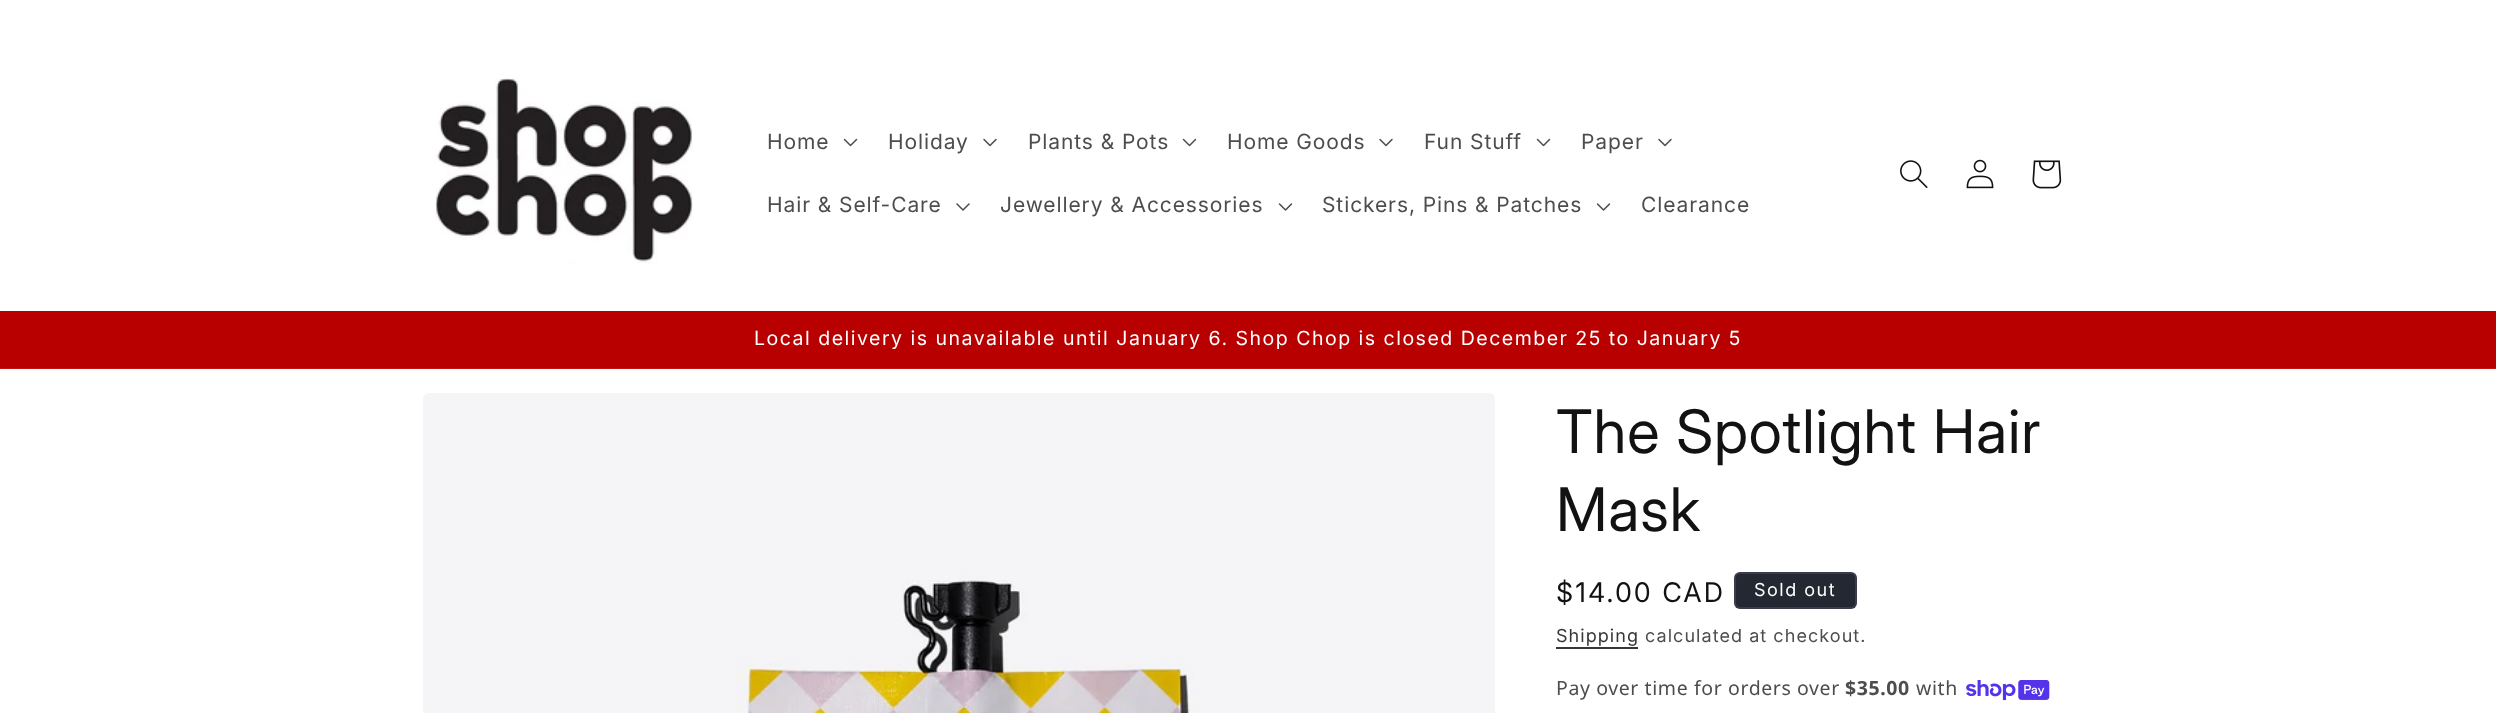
<svg xmlns="http://www.w3.org/2000/svg" width="2496" height="713">
<style>
.a{font:21px Inter;letter-spacing:0.9px;fill:#4d4d4d}
.b{font:19.5px Inter;letter-spacing:1.5px;fill:#fff}
.c{font:60px 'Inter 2';letter-spacing:0.9px;fill:#121212}
.d{font:27px 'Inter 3';letter-spacing:2px;fill:#121212}
.e{font:18px Inter;letter-spacing:1.5px;fill:#fff}
.f{font:18px Inter;letter-spacing:1.05px;fill:#363636}
.g{font:18px Inter;letter-spacing:1.05px;fill:#4d4d4d}
.h{font:19.5px Noto Sans;letter-spacing:0.6px;fill:#4d4d4d}
.i{font:bold 19.5px Noto Sans;letter-spacing:0.6px;fill:#4d4d4d}
</style>
<rect width="100%" height="100%" fill="#fff"/>
<image href="1.png" x="435" y="78" width="258" height="186"/>
<image href="2.png" x="843" y="138" width="15" height="9"/>
<image href="3.png" x="983" y="138" width="14" height="9"/>
<image href="2.png" x="1182" y="138" width="15" height="9"/>
<image href="3.png" x="1379" y="138" width="14" height="9"/>
<image href="2.png" x="1536" y="138" width="15" height="9"/>
<image href="3.png" x="1658" y="138" width="14" height="9"/>
<image href="4.png" x="956" y="203" width="14" height="8"/>
<image href="5.png" x="1278" y="203" width="15" height="8"/>
<image href="5.png" x="1596" y="203" width="15" height="8"/>
<image href="6.png" x="1900" y="160" width="28" height="28"/>
<image href="7.png" x="1966" y="159" width="28" height="30"/>
<image href="8.png" x="2032" y="160" width="30" height="29"/>
<path fill="#b90000" d="M0 311h2496v57H0z"/>
<path fill="#bf1414" d="M0 368h2496v1H0z"/>
<image href="9.png" x="423" y="393" width="1072" height="320"/>
<rect fill="#242833" x="1734" y="572" width="123" height="37" rx="6"/>
<rect fill="none" stroke="#ffffff1a" stroke-width="2" x="1735" y="573" width="121" height="35" rx="5"/>
<path fill="#363636" d="M1556 647h82v2H1556z"/>
<image href="10.png" x="1966" y="680" width="84" height="21"/>
<text class="a" x="767" y="149">Home</text>
<text class="a" x="888" y="149">Holiday</text>
<text class="a" x="1028" y="149">Plants &amp; Pots</text>
<text class="a" x="1227" y="149">Home Goods</text>
<text class="a" x="1424" y="149">Fun Stuff</text>
<text class="a" x="1581" y="149">Paper</text>
<text class="a" x="767" y="212">Hair &amp; Self-Care</text>
<text class="a" x="1000" y="212">Jewellery &amp; Accessories</text>
<text class="a" x="1322" y="212">Stickers, Pins &amp; Patches</text>
<text class="a" x="1641" y="212">Clearance</text>
<text class="b" x="754" y="345">Local delivery is unavailable until January 6. Shop Chop is closed December 25 to January 5</text>
<text class="c" x="1556" y="453">The Spotlight Hair</text>
<text class="c" x="1556" y="531">Mask</text>
<text class="d" x="1556" y="602">$14.00 CAD</text>
<text class="e" x="1754" y="596">Sold out</text>
<text class="f" x="1556" y="642">Shipping</text>
<text class="g" x="1645" y="642">calculated at checkout.</text>
<text class="h" x="1556" y="695">Pay over time for orders over</text>
<text class="i" x="1845" y="695">$35.00</text>
<text class="h" x="1916" y="695">with</text>
</svg>
